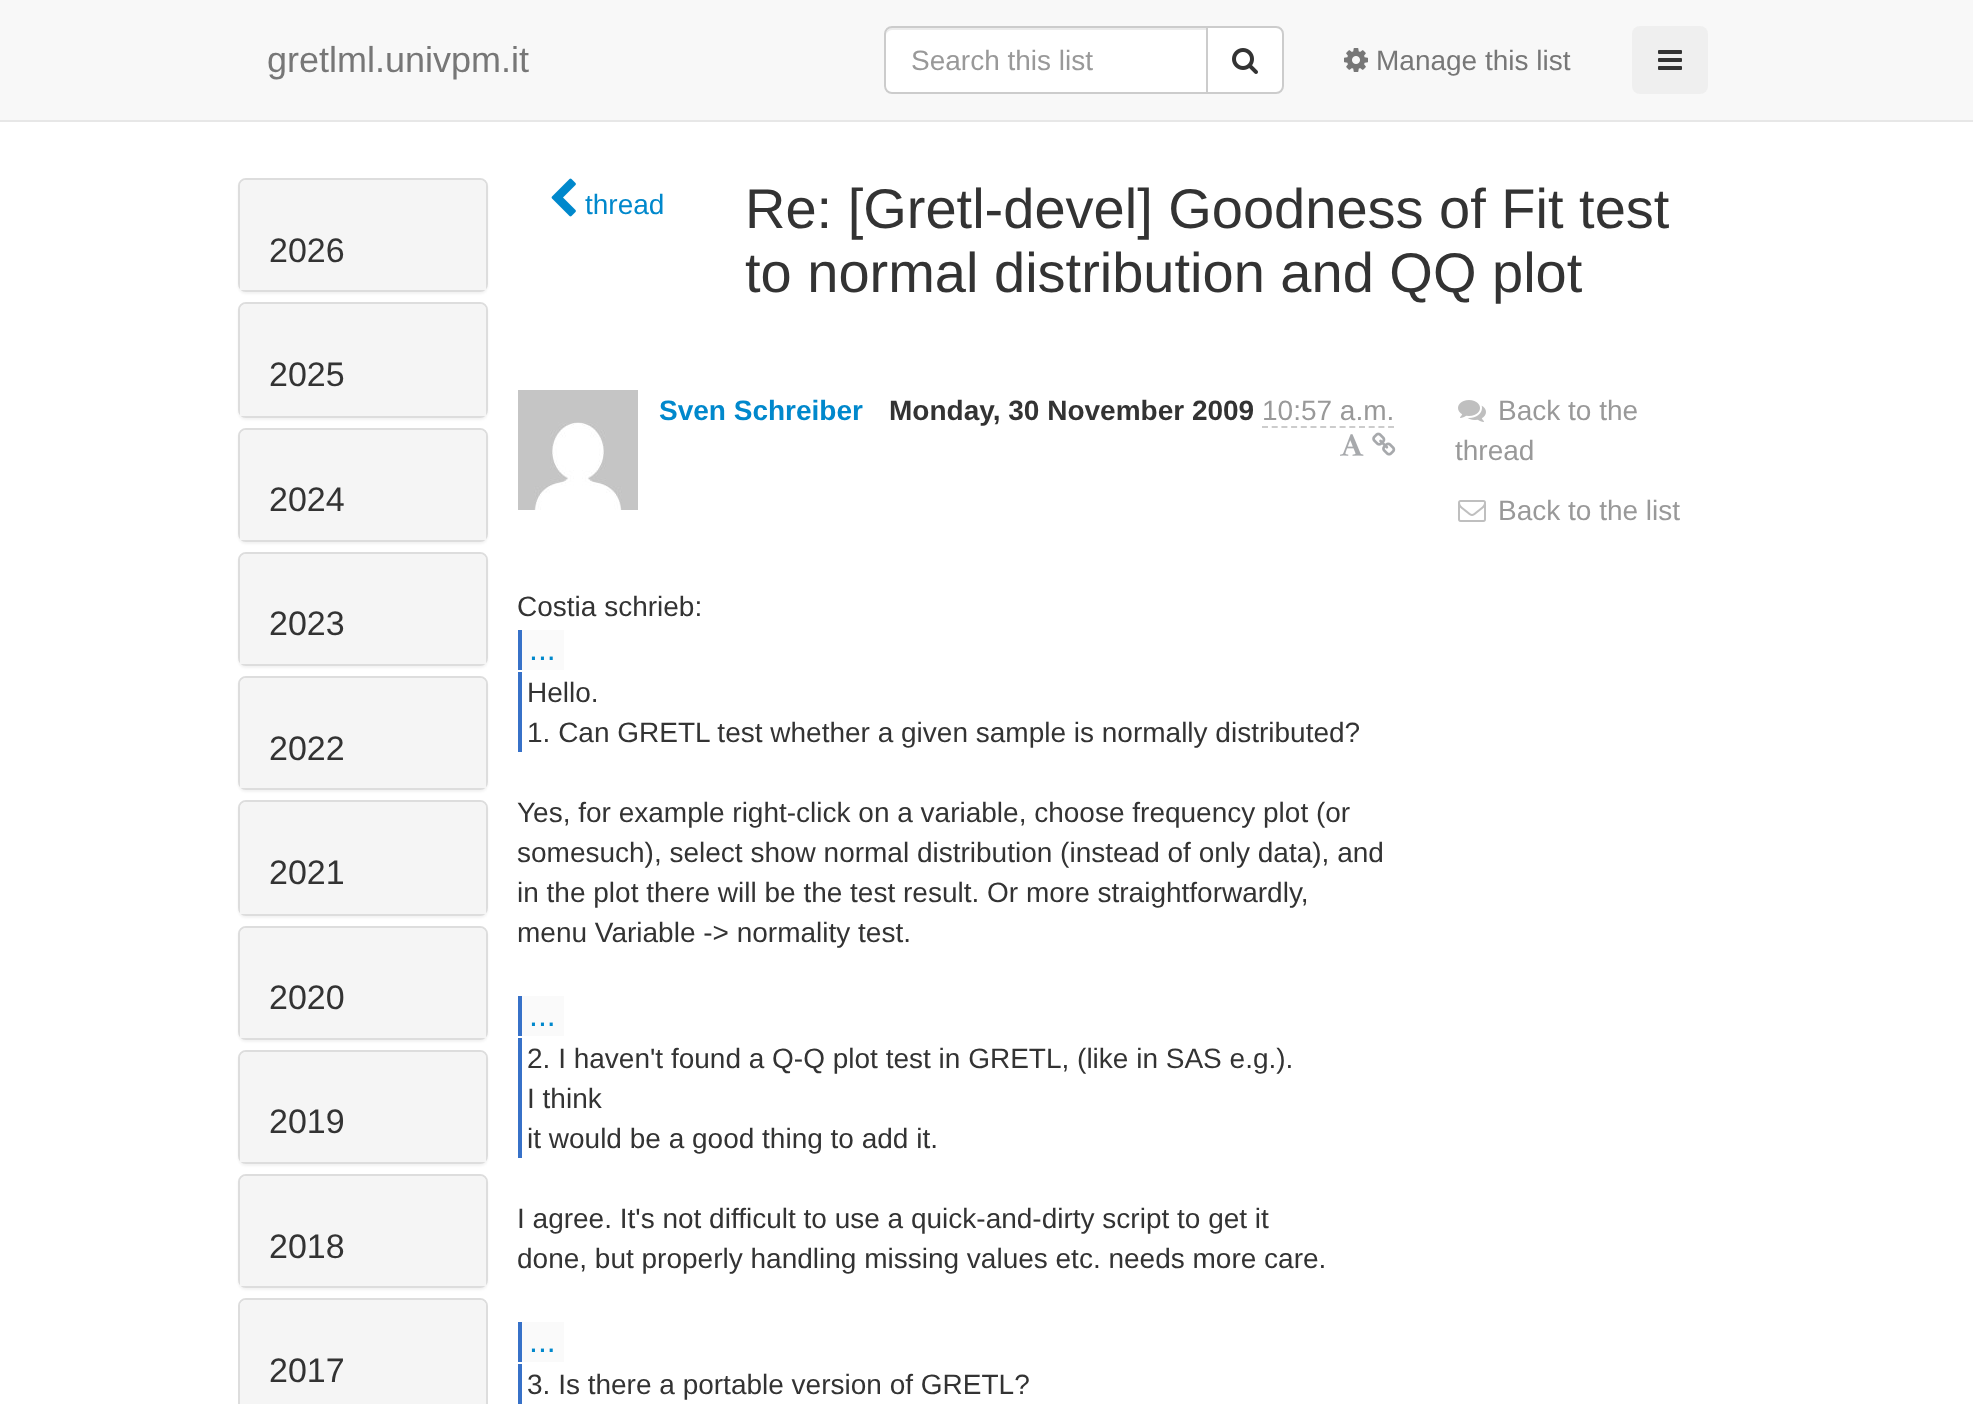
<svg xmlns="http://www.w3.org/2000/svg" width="1973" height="1404">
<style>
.a{font:36px Liberation Sans;fill:#777}
.b{font:28px Liberation Sans;fill:#999}
.c{font:28px Liberation Sans;fill:#777}
.d{font:34px Liberation Sans;fill:#333}
.e{font:28px Liberation Sans;fill:#08c}
.f{font:56px Liberation Sans;fill:#333}
.g{font:bold 28px Liberation Sans;fill:#08c}
.h{font:bold 28px Liberation Sans;fill:#333}
.i{font:28px Liberation Sans;fill:#333}
.j{font:32px Liberation Sans;fill:#08c}
</style>
<rect width="100%" height="100%" fill="#fff"/>
<path fill="#f8f8f8" d="M0 0h1973v120H0z"/>
<path fill="#e7e7e7" d="M0 120h1973v2H0z"/>
<path fill="#fff" d="M892 26h316v68h-316c-4.5 0-8-3.5-8-8v-52c0-4.5 3.5-8 8-8z"/>
<path fill="#ececec" d="M892 30h314v-2h-315c-4 1-5 5-5 8c0-3 3-6 6-6z"/>
<path fill="none" stroke="#ccc" stroke-width="2" d="M892 27h315v66h-315c-4 0-7-3-7-7v-52c0-4 3-7 7-7z"/>
<path fill="#fff" stroke="#ccc" stroke-width="2" d="M1207 27h69c4 0 7 3 7 7v52c0 4-3 7-7 7h-69z"/>
<image href="1.png" x="1232" y="48" width="26" height="26"/>
<image href="2.png" x="1344" y="48" width="24" height="24"/>
<rect fill="#efefef" x="1632" y="26" width="76" height="68" rx="8"/>
<image href="3.png" x="1658" y="50" width="24" height="20"/>
<rect fill="#0000000d" filter="blur(1px)" x="238" y="180" width="250" height="114" rx="8"/>
<rect fill="none" stroke="#ddd" stroke-width="2" x="239" y="179" width="248" height="112" rx="7"/>
<path fill="#f5f5f5" d="M246 180h234c3.5 0 6 2.5 6 6v104h-246v-104c0-3.5 2.5-6 6-6z"/>
<rect fill="#0000000d" filter="blur(1px)" x="238" y="304" width="250" height="116" rx="8"/>
<rect fill="none" stroke="#ddd" stroke-width="2" x="239" y="303" width="248" height="114" rx="7"/>
<path fill="#f5f5f5" d="M246 304h234c3.5 0 6 2.5 6 6v106h-246v-106c0-3.5 2.5-6 6-6z"/>
<rect fill="#0000000d" filter="blur(1px)" x="238" y="430" width="250" height="114" rx="8"/>
<rect fill="none" stroke="#ddd" stroke-width="2" x="239" y="429" width="248" height="112" rx="7"/>
<path fill="#f5f5f5" d="M246 430h234c3.5 0 6 2.5 6 6v104h-246v-104c0-3.5 2.5-6 6-6z"/>
<rect fill="#0000000d" filter="blur(1px)" x="238" y="554" width="250" height="114" rx="8"/>
<rect fill="none" stroke="#ddd" stroke-width="2" x="239" y="553" width="248" height="112" rx="7"/>
<path fill="#f5f5f5" d="M246 554h234c3.5 0 6 2.5 6 6v104h-246v-104c0-3.5 2.5-6 6-6z"/>
<rect fill="#0000000d" filter="blur(1px)" x="238" y="678" width="250" height="114" rx="8"/>
<rect fill="none" stroke="#ddd" stroke-width="2" x="239" y="677" width="248" height="112" rx="7"/>
<path fill="#f5f5f5" d="M246 678h234c3.5 0 6 2.5 6 6v104h-246v-104c0-3.5 2.5-6 6-6z"/>
<rect fill="#0000000d" filter="blur(1px)" x="238" y="802" width="250" height="116" rx="8"/>
<rect fill="none" stroke="#ddd" stroke-width="2" x="239" y="801" width="248" height="114" rx="7"/>
<path fill="#f5f5f5" d="M246 802h234c3.5 0 6 2.5 6 6v106h-246v-106c0-3.5 2.5-6 6-6z"/>
<rect fill="#0000000d" filter="blur(1px)" x="238" y="928" width="250" height="114" rx="8"/>
<rect fill="none" stroke="#ddd" stroke-width="2" x="239" y="927" width="248" height="112" rx="7"/>
<path fill="#f5f5f5" d="M246 928h234c3.5 0 6 2.5 6 6v104h-246v-104c0-3.5 2.5-6 6-6z"/>
<rect fill="#0000000d" filter="blur(1px)" x="238" y="1052" width="250" height="114" rx="8"/>
<rect fill="none" stroke="#ddd" stroke-width="2" x="239" y="1051" width="248" height="112" rx="7"/>
<path fill="#f5f5f5" d="M246 1052h234c3.5 0 6 2.5 6 6v104h-246v-104c0-3.5 2.5-6 6-6z"/>
<rect fill="#0000000d" filter="blur(1px)" x="238" y="1176" width="250" height="114" rx="8"/>
<rect fill="none" stroke="#ddd" stroke-width="2" x="239" y="1175" width="248" height="112" rx="7"/>
<path fill="#f5f5f5" d="M246 1176h234c3.5 0 6 2.5 6 6v104h-246v-104c0-3.5 2.5-6 6-6z"/>
<rect fill="none" stroke="#ddd" stroke-width="2" x="239" y="1299" width="248" height="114" rx="7"/>
<path fill="#f5f5f5" d="M246 1300h234c3.5 0 6 2.5 6 6v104h-246v-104c0-3.5 2.5-6 6-6z"/>
<image href="4.png" x="551" y="178" width="25" height="39"/>
<image href="5.png" x="518" y="390" width="120" height="120"/>
<path fill="none" stroke="#ccc" stroke-width="2" stroke-dasharray="6 3.7" d="M1262 427h132"/>
<image href="6.png" x="1340" y="434" width="24" height="22"/>
<image href="7.png" x="1372" y="432" width="24" height="24"/>
<path fill="#fafafa" d="M522 630h42v40H522z"/>
<path fill="#3771c8" d="M518 630h4v40H518z"/>
<path fill="#3771c8" d="M518 672h4v80H518z"/>
<path fill="#fafafa" d="M522 996h42v40H522z"/>
<path fill="#3771c8" d="M518 996h4v40H518z"/>
<path fill="#3771c8" d="M518 1038h4v120H518z"/>
<path fill="#fafafa" d="M522 1322h42v40H522z"/>
<path fill="#3771c8" d="M518 1322h4v40H518z"/>
<path fill="#3771c8" d="M518 1364h4v40H518z"/>
<image href="8.png" x="1458" y="400" width="28" height="22"/>
<image href="9.png" x="1458" y="500" width="28" height="22"/>
<text class="a" x="267" y="72">gretlml.univpm.it</text>
<text class="b" x="911" y="70">Search this list</text>
<text class="c" x="1376" y="70">Manage this list</text>
<text class="d" x="269" y="262">2026</text>
<text class="d" x="269" y="386">2025</text>
<text class="d" x="269" y="511">2024</text>
<text class="d" x="269" y="635">2023</text>
<text class="d" x="269" y="760">2022</text>
<text class="d" x="269" y="884">2021</text>
<text class="d" x="269" y="1009">2020</text>
<text class="d" x="269" y="1133">2019</text>
<text class="d" x="269" y="1258">2018</text>
<text class="d" x="269" y="1382">2017</text>
<text class="e" x="585" y="214">thread</text>
<text class="f" x="745" y="228">Re: [Gretl-devel] Goodness of Fit test</text>
<text class="f" x="745" y="292">to normal distribution and QQ plot</text>
<text class="g" x="659" y="420">Sven Schreiber</text>
<text class="h" x="889" y="420">Monday, 30 November 2009</text>
<text class="b" x="1262" y="420">10:57 a.m.</text>
<text class="i" x="517" y="616">Costia schrieb:</text>
<text class="j" x="529" y="660">...</text>
<text class="i" x="527" y="702">Hello.</text>
<text class="i" x="527" y="742">1. Can GRETL test whether a given sample is normally distributed?</text>
<text class="i" x="517" y="822">Yes, for example right-click on a variable, choose frequency plot (or</text>
<text class="i" x="517" y="862">somesuch), select show normal distribution (instead of only data), and</text>
<text class="i" x="517" y="902">in the plot there will be the test result. Or more straightforwardly,</text>
<text class="i" x="517" y="942">menu Variable -&gt; normality test.</text>
<text class="j" x="529" y="1026">...</text>
<text class="i" x="527" y="1068">2. I haven't found a Q-Q plot test in GRETL, (like in SAS e.g.).</text>
<text class="i" x="527" y="1108">I think</text>
<text class="i" x="527" y="1148">it would be a good thing to add it.</text>
<text class="i" x="517" y="1228">I agree. It's not difficult to use a quick-and-dirty script to get it</text>
<text class="i" x="517" y="1268">done, but properly handling missing values etc. needs more care.</text>
<text class="j" x="529" y="1352">...</text>
<text class="i" x="527" y="1394">3. Is there a portable version of GRETL?</text>
<text class="b" x="1498" y="420">Back to the</text>
<text class="b" x="1455" y="460">thread</text>
<text class="b" x="1498" y="520">Back to the list</text>
</svg>
